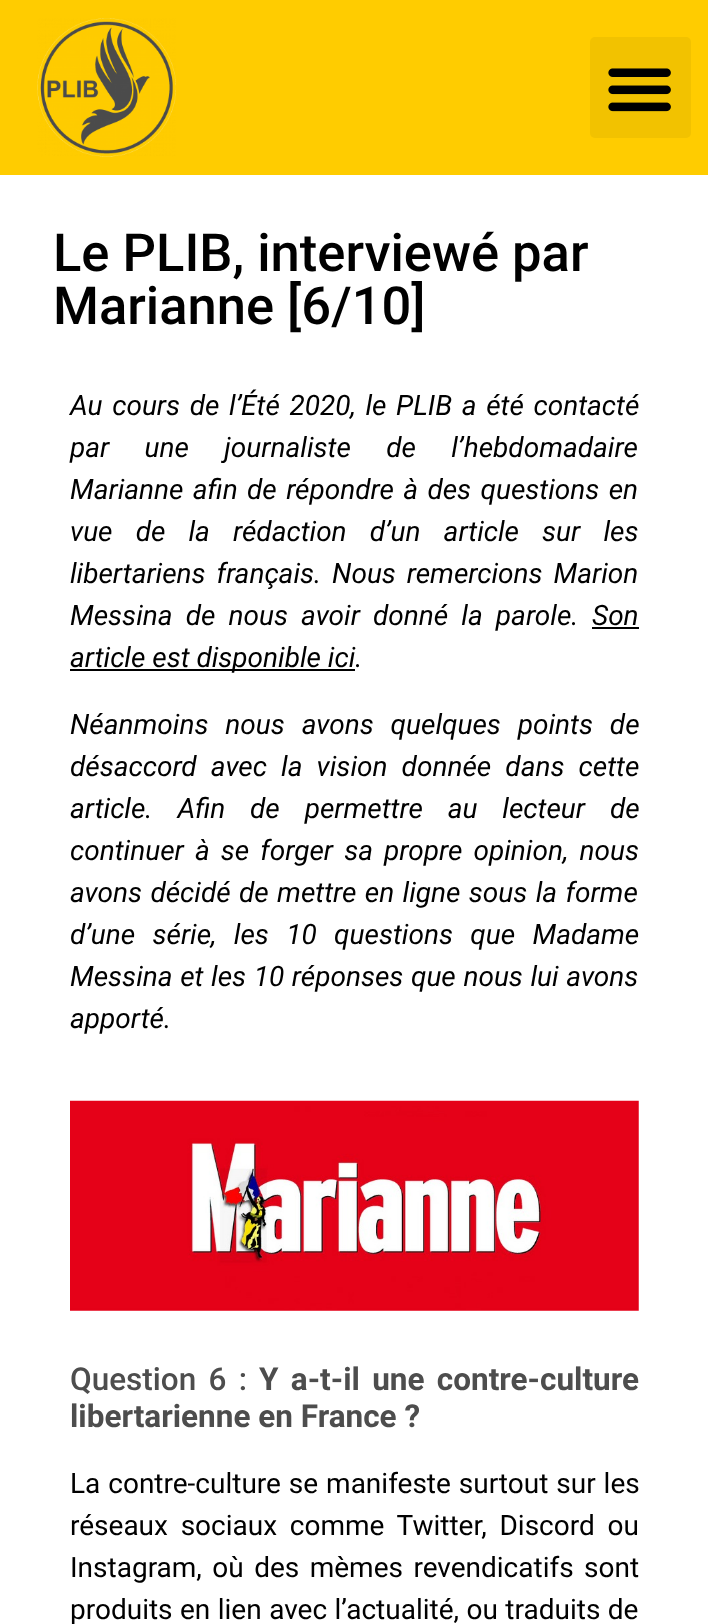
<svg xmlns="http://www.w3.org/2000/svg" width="708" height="1624">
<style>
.a{font:500 52.5px Roboto;fill:#000}
.b{font:italic 28px Roboto;fill:#000}
.c{font:500 31.5px Roboto;fill:#4d4d4d}
.d{font:bold 31.5px Roboto;fill:#4d4d4d}
.e{font:28px Roboto;fill:#000}
</style>
<rect width="100%" height="100%" fill="#fff"/>
<path fill="#fc0" d="M0 0h708v175H0z"/>
<image href="1.png" x="37" y="18" width="139" height="139"/>
<rect fill="#f2c200" x="590" y="37" width="101" height="101" rx="5"/>
<image href="2.png" x="608" y="68" width="63" height="44"/>
<path fill="#000" d="M592 627h47v2H592z"/>
<path fill="#000" d="M70 669h285v2H70z"/>
<image href="3.png" x="70" y="1100" width="569" height="211"/>
<text class="a" x="53" y="271">Le PLIB, interviewé par</text>
<text class="a" x="53" y="324">Marianne [6/10]</text>
<text class="b" x="70" y="415" word-spacing="2.75">Au cours de l’Été 2020, le PLIB a été contacté</text>
<text class="b" x="70" y="457" word-spacing="28.5">par une journaliste de l’hebdomadaire</text>
<text class="b" x="70" y="499" word-spacing="2.5">Marianne afin de répondre à des questions en</text>
<text class="b" x="70" y="541" word-spacing="16.25">vue de la rédaction d’un article sur les</text>
<text class="b" x="70" y="583" word-spacing="4">libertariens français. Nous remercions Marion</text>
<text class="b" x="70" y="625" word-spacing="6.25">Messina de nous avoir donné la parole.</text>
<text class="b" x="592" y="625">Son</text>
<text class="b" x="70" y="667">article est disponible ici.</text>
<text class="b" x="70" y="734" word-spacing="10">Néanmoins nous avons quelques points de</text>
<text class="b" x="70" y="776" word-spacing="7.25">désaccord avec la vision donnée dans cette</text>
<text class="b" x="70" y="818" word-spacing="18">article. Afin de permettre au lecteur de</text>
<text class="b" x="70" y="860" word-spacing="4.25">continuer à se forger sa propre opinion, nous</text>
<text class="b" x="70" y="902" word-spacing="1.5">avons décidé de mettre en ligne sous la forme</text>
<text class="b" x="70" y="944" word-spacing="10.5">d’une série, les 10 questions que Madame</text>
<text class="b" x="70" y="986" word-spacing="0.75">Messina et les 10 réponses que nous lui avons</text>
<text class="b" x="70" y="1028">apporté.</text>
<text class="c" x="70" y="1390" word-spacing="4.5">Question 6 :</text>
<text class="d" x="259" y="1390" word-spacing="4.5">Y a-t-il une contre-culture</text>
<text class="d" x="70" y="1427">libertarienne en France ?</text>
<text class="e" x="70" y="1493" word-spacing="1">La contre-culture se manifeste surtout sur les</text>
<text class="e" x="70" y="1535" word-spacing="5.75">réseaux sociaux comme Twitter, Discord ou</text>
<text class="e" x="70" y="1577" word-spacing="3.5">Instagram, où des mèmes revendicatifs sont</text>
<text class="e" x="70" y="1619" word-spacing="0.5">produits en lien avec l’actualité, ou traduits de</text>
</svg>
